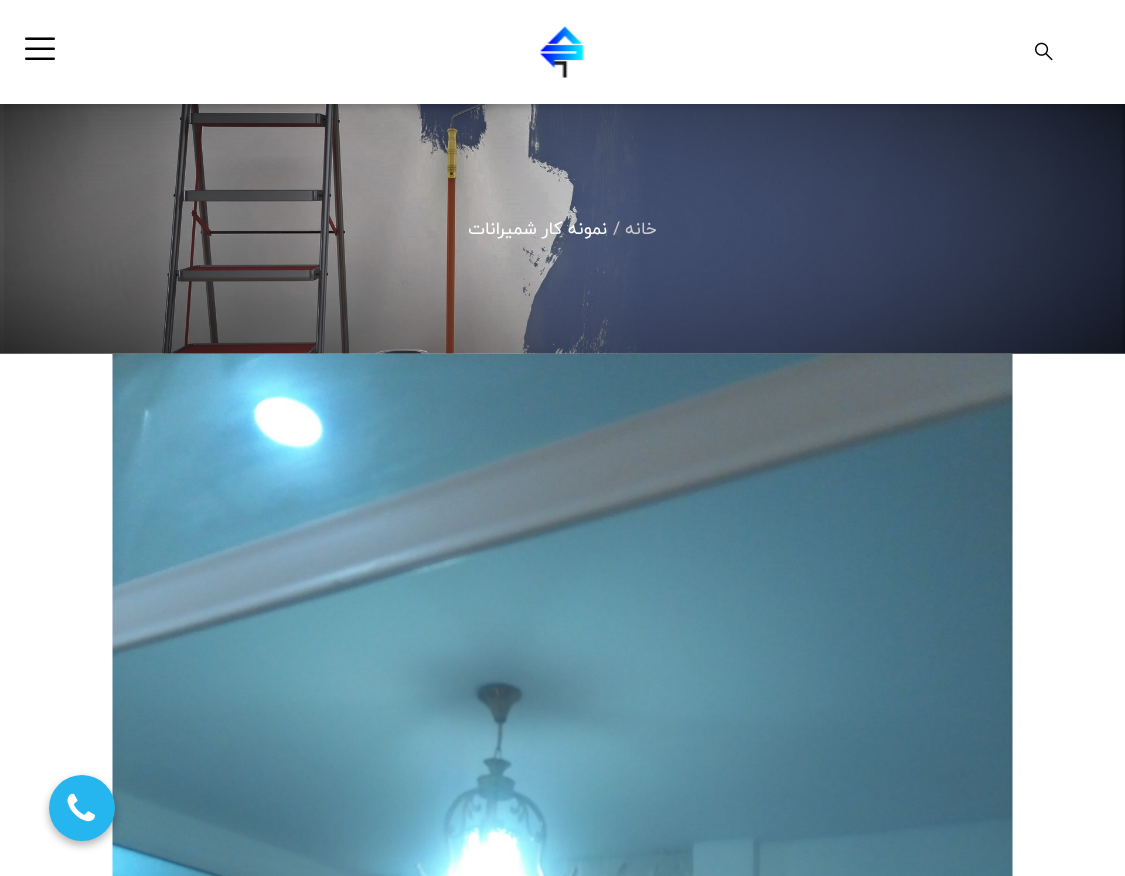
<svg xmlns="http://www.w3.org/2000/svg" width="1125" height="876">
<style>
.a{font:17.5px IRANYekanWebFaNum;direction:rtl;fill:#ccc}
.b{font:17.5px IRANYekanWebFaNum;fill:#ccc}
.c{font:17.5px IRANYekanWebFaNum;direction:rtl;fill:#fff}
</style>
<rect width="100%" height="100%" fill="#fff"/>
<image href="4.png" x="0" y="104" width="1125" height="250"/>
<path fill="#0000001a" filter="blur(2px)" d="M3 4h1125v104H3z"/>
<path fill="#fff" d="M0 1h1125v103H0z"/>
<image href="1.png" x="1035" y="42" width="18" height="19"/>
<image href="2.png" x="540" y="26" width="44" height="52"/>
<image href="3.png" x="25" y="37" width="30" height="23"/>
<image href="5.png" x="112" y="353" width="901" height="523"/>
<rect fill="#0000004d" filter="blur(4px)" x="49" y="779" width="66" height="66" rx="33"/>
<circle fill="#26b6ef" cx="82" cy="808" r="33"/>
<image href="6.png" x="67" y="793" width="28" height="29"/>
<text class="a" x="657" y="234">خانه</text>
<text class="b" x="613" y="234">/</text>
<text class="c" x="607" y="234">نمونه کار شمیرانات</text>
</svg>
